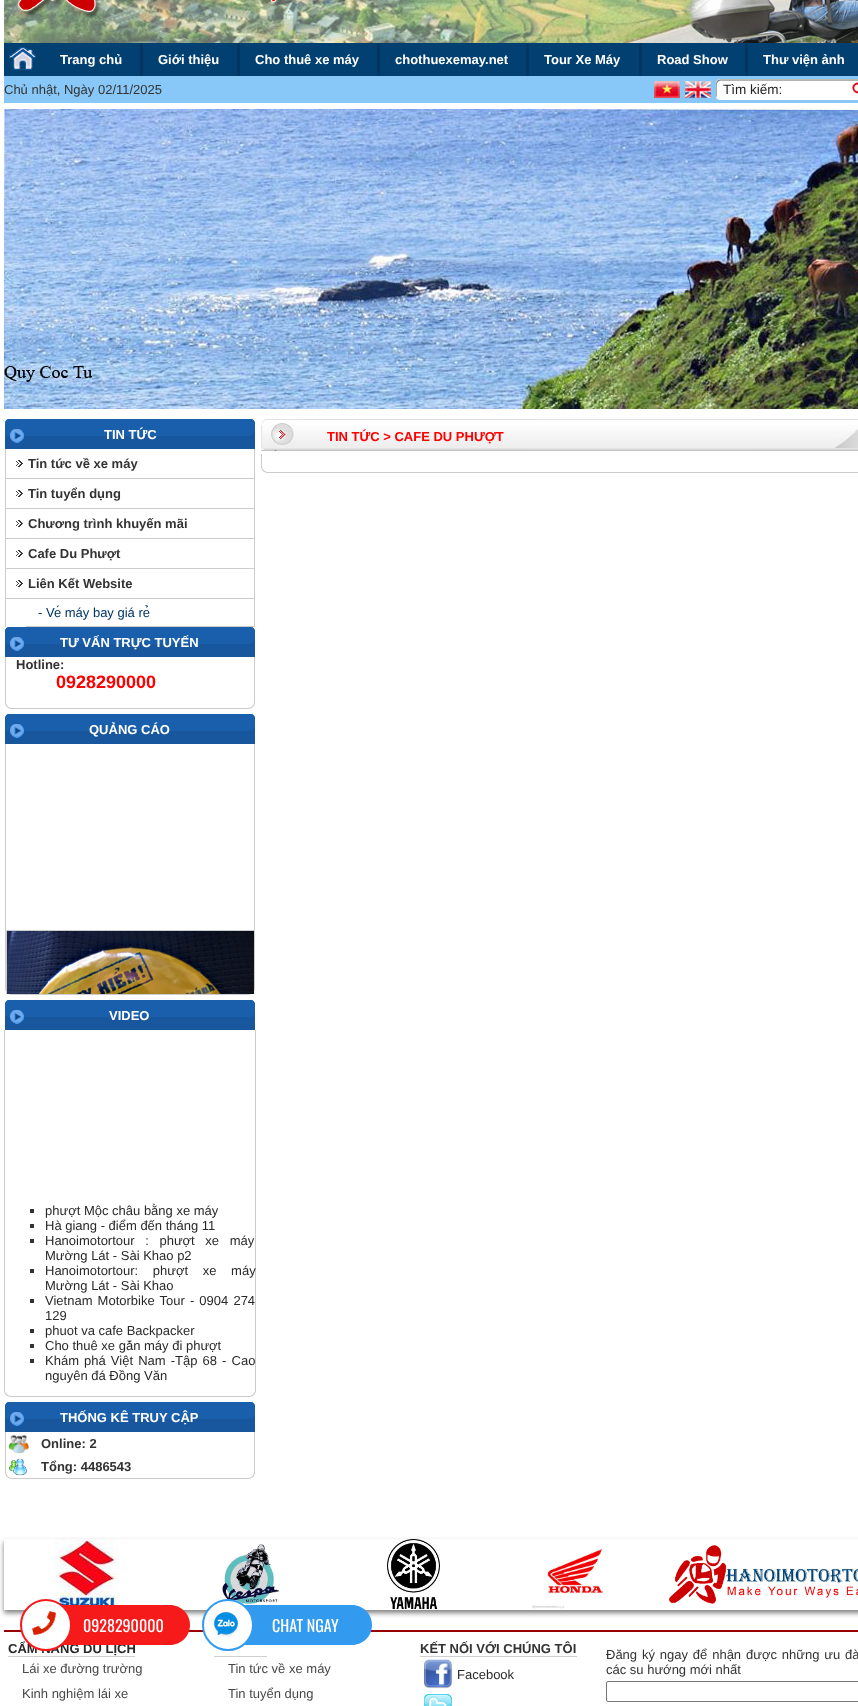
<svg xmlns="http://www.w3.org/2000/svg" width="858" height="1706">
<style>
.a{font:bold 13px Liberation Sans;fill:#fff}
.b{font:13px Liberation Sans;fill:#333}
.c{font:13.5px Liberation Sans;fill:#222323}
.d{font:bold 13px Liberation Sans;fill:#333}
.e{font:13px Liberation Sans;fill:#036}
.f{font:bold 18px Liberation Sans;fill:#f00}
.g{font:13px Liberation Sans;fill:#292929}
.h{font:bold 13px Liberation Sans;fill:#f00}
.i{font:bold 13px Liberation Sans;fill:#292929}
.j{font:13px Liberation Sans;fill:#484847}
.k{font:16px Oswald;fill:#fff}
</style>
<defs>
<clipPath id="clip1"><path d="M6 744h248v250H6z"/></clipPath>
<clipPath id="clip2"><path d="M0 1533h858v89h-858zm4 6h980v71h-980z" clip-rule="evenodd"/></clipPath>
</defs>
<rect width="100%" height="100%" fill="#fff"/>
<image href="1.png" x="4" y="0" width="854" height="43"/>
<image href="2.png" x="4" y="43" width="33" height="33"/>
<path fill="#014071" d="M37 43h821v33H37z"/>
<path fill="#013662" d="M140 43h3v33H140z"/>
<path fill="#013662" d="M237 43h3v33H237z"/>
<path fill="#013662" d="M377 43h3v33H377z"/>
<path fill="#013662" d="M526 43h3v33H526z"/>
<path fill="#013662" d="M639 43h3v33H639z"/>
<path fill="#013662" d="M745 43h3v33H745z"/>
<path fill="#88c8f8" d="M4 76h854v27H4z"/>
<image href="3.png" x="654" y="81" width="26" height="17"/>
<image href="4.png" x="685" y="81" width="26" height="17"/>
<image href="5.png" x="716" y="79" width="131" height="21"/>
<image href="6.png" x="847" y="79" width="11" height="21"/>
<image href="7.png" x="4" y="109" width="854" height="300"/>
<image href="8.png" x="5" y="419" width="250" height="30"/>
<path fill="#ccc" d="M254 449h1v178H254z"/>
<path fill="#ccc" d="M5 449h1v178H5z"/>
<path fill="#ccc" d="M6 478h248v1H6z"/>
<image href="9.png" x="16" y="460" width="7" height="7"/>
<path fill="#ccc" d="M6 508h248v1H6z"/>
<image href="9.png" x="16" y="490" width="7" height="7"/>
<path fill="#ccc" d="M6 538h248v1H6z"/>
<image href="9.png" x="16" y="520" width="7" height="7"/>
<path fill="#ccc" d="M6 568h248v1H6z"/>
<image href="9.png" x="16" y="550" width="7" height="7"/>
<path fill="#ccc" d="M6 598h248v1H6z"/>
<image href="9.png" x="16" y="580" width="7" height="7"/>
<path fill="#ccc" d="M26 626h228v1H26z"/>
<image href="8.png" x="5" y="627" width="250" height="30"/>
<path fill="#ccc" fill-rule="evenodd" d="M5 657h250v45c0 4-3 7-7 7h-236c-4 0-7-3-7-7zm1 0h248v45c0 3-3 6-6 6h-236c-3 0-6-3-6-6z"/>
<image href="8.png" x="5" y="714" width="250" height="30"/>
<path fill="#ccc" fill-rule="evenodd" d="M5 744h250v244c0 4-3 7-7 7h-236c-4 0-7-3-7-7zm1 0h248v244c0 3-3 6-6 6h-236c-3 0-6-3-6-6z"/>
<image href="8.png" x="5" y="1000" width="250" height="30"/>
<path fill="#ccc" fill-rule="evenodd" d="M4 1030h252v360c0 4-3 7-7 7h-238c-4 0-7-3-7-7zm1 0h250v360c0 3-3 6-6 6h-238c-3 0-6-3-6-6z"/>
<path fill="#333" d="M30 1209h4v4H30z"/>
<path fill="#333" d="M30 1224h4v4H30z"/>
<path fill="#333" d="M30 1239h4v4H30z"/>
<path fill="#333" d="M30 1269h4v4H30z"/>
<path fill="#333" d="M30 1299h4v4H30z"/>
<path fill="#333" d="M30 1329h4v4H30z"/>
<path fill="#333" d="M30 1344h4v4H30z"/>
<path fill="#333" d="M30 1359h4v4H30z"/>
<image href="8.png" x="5" y="1402" width="250" height="30"/>
<path fill="#ccc" fill-rule="evenodd" d="M5 1432h250v40c0 4-3 7-7 7h-236c-4 0-7-3-7-7zm1 0h248v40c0 3-3 6-6 6h-236c-3 0-6-3-6-6z"/>
<image href="11.png" x="8" y="1434" width="21" height="20"/>
<image href="12.png" x="9" y="1458" width="18" height="18"/>
<g clip-path="url(#clip1)">
<path fill="none" stroke="#ccc" d="M6.5 930.5h249v688H6.5z"/>
</g>
<image href="10.png" x="7" y="931" width="247" height="63"/>
<image href="13.png" x="261" y="419" width="597" height="32"/>
<path fill="#ccc" fill-rule="evenodd" d="M261 454h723v12c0 4-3 7-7 7h-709c-4 0-7-3-7-7zm1 0h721v12c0 3-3 6-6 6h-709c-3 0-6-3-6-6z"/>
<g clip-path="url(#clip2)">
<path fill="#808080" filter="blur(2.5px)" d="M4 1542h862v71H4z"/>
</g>
<image href="14.png" x="54" y="1539" width="65" height="66"/>
<image href="15.png" x="220" y="1544" width="60" height="61"/>
<image href="16.png" x="387" y="1539" width="53" height="70"/>
<image href="17.png" x="531" y="1548" width="72" height="61"/>
<image href="18.png" x="669" y="1545" width="189" height="59"/>
<path fill="#900" d="M4 1630h854v2H4z"/>
<path fill="#d0d0d0" d="M8 1656h127v1H8z"/>
<path fill="#d0d0d0" d="M214 1656h53v1H214z"/>
<path fill="#d0d0d0" d="M420 1656h157v1H420z"/>
<image href="19.png" x="424" y="1659" width="29" height="30"/>
<image href="20.png" x="424" y="1694" width="28" height="12"/>
<rect fill="none" stroke="#767676" x="606.5" y="1681.5" width="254" height="20" rx="1.5"/>
<path fill="#339bef" d="M232 1605h120c11 0 20 9 20 20c0 11-9 20-20 20h-120z"/>
<circle fill="#fff" stroke="#339bef" stroke-width="2" cx="228" cy="1625" r="25"/>
<image href="22.png" x="214" y="1612" width="24" height="25"/>
<text class="a" x="60" y="64">Trang chủ</text>
<text class="a" x="158" y="64">Giới thiệu</text>
<text class="a" x="255" y="64">Cho thuê xe máy</text>
<text class="a" x="395" y="64">chothuexemay.net</text>
<text class="a" x="544" y="64">Tour Xe Máy</text>
<text class="a" x="657" y="64">Road Show</text>
<text class="a" x="763" y="64">Thư viện ảnh</text>
<text class="b" x="4" y="94">Chủ nhật, Ngày 02/11/2025</text>
<text class="c" x="723" y="94">Tìm kiếm:</text>
<text class="a" x="104" y="439">TIN TỨC</text>
<text class="d" x="28" y="468">Tin tức về xe máy</text>
<text class="d" x="28" y="498">Tin tuyển dụng</text>
<text class="d" x="28" y="528">Chương trình khuyến mãi</text>
<text class="d" x="28" y="558">Cafe Du Phượt</text>
<text class="d" x="28" y="588">Liên Kết Website</text>
<text class="e" x="38" y="617">- Vé máy bay giá rẻ</text>
<text class="a" x="60" y="647">TƯ VẤN TRỰC TUYẾN</text>
<text class="d" x="16" y="669">Hotline:</text>
<text class="f" x="56" y="688">0928290000</text>
<text class="a" x="89" y="734">QUẢNG CÁO</text>
<text class="a" x="109" y="1020">VIDEO</text>
<text class="g" x="45" y="1215">phượt Mộc châu bằng xe máy</text>
<text class="g" x="45" y="1230">Hà giang - điểm đến tháng 11</text>
<text class="g" x="45" y="1245" word-spacing="7">Hanoimotortour : phượt xe máy</text>
<text class="g" x="45" y="1260">Mường Lát - Sài Khao p2</text>
<text class="g" x="45" y="1275" word-spacing="11">Hanoimotortour: phượt xe máy</text>
<text class="g" x="45" y="1290">Mường Lát - Sài Khao</text>
<text class="g" x="45" y="1305" word-spacing="1.5">Vietnam Motorbike Tour - 0904 274</text>
<text class="g" x="45" y="1320">129</text>
<text class="g" x="45" y="1335">phuot va cafe Backpacker</text>
<text class="g" x="45" y="1350">Cho thuê xe gắn máy đi phượt</text>
<text class="g" x="45" y="1365" word-spacing="1.5">Khám phá Việt Nam -Tập 68 - Cao</text>
<text class="g" x="45" y="1380">nguyên đá Đồng Văn</text>
<text class="a" x="60" y="1422">THỐNG KÊ TRUY CẬP</text>
<text class="d" x="41" y="1448">Online: 2</text>
<text class="d" x="41" y="1471">Tổng: 4486543</text>
<text class="h" x="327" y="441">TIN TỨC &gt; CAFE DU PHƯỢT</text>
<text class="i" x="8" y="1653">CẨM NANG DU LỊCH</text>
<text class="j" x="22" y="1673">Lái xe đường trường</text>
<text class="j" x="22" y="1698">Kinh nghiệm lái xe</text>
<text class="j" x="228" y="1673">Tin tức về xe máy</text>
<text class="j" x="228" y="1698">Tin tuyển dụng</text>
<text class="d" x="420" y="1653">KẾT NỐI VỚI CHÚNG TÔI</text>
<text class="g" x="457" y="1679">Facebook</text>
<text class="b" x="606" y="1659" word-spacing="1.25">Đăng ký ngay để nhận được những ưu đà</text>
<text class="b" x="606" y="1674">các su hướng mới nhất</text>
<path fill="#f71a1a" d="M50 1605h120c11 0 20 9 20 20c0 11-9 20-20 20h-120z"/>
<circle fill="#fff" stroke="#f71a1a" stroke-width="2" cx="46" cy="1625" r="25"/>
<image href="21.png" x="32" y="1611" width="24" height="24"/>
<text class="k" x="83" y="1632">0928290000</text>
<text class="k" x="272" y="1632">CHAT NGAY</text>
</svg>
